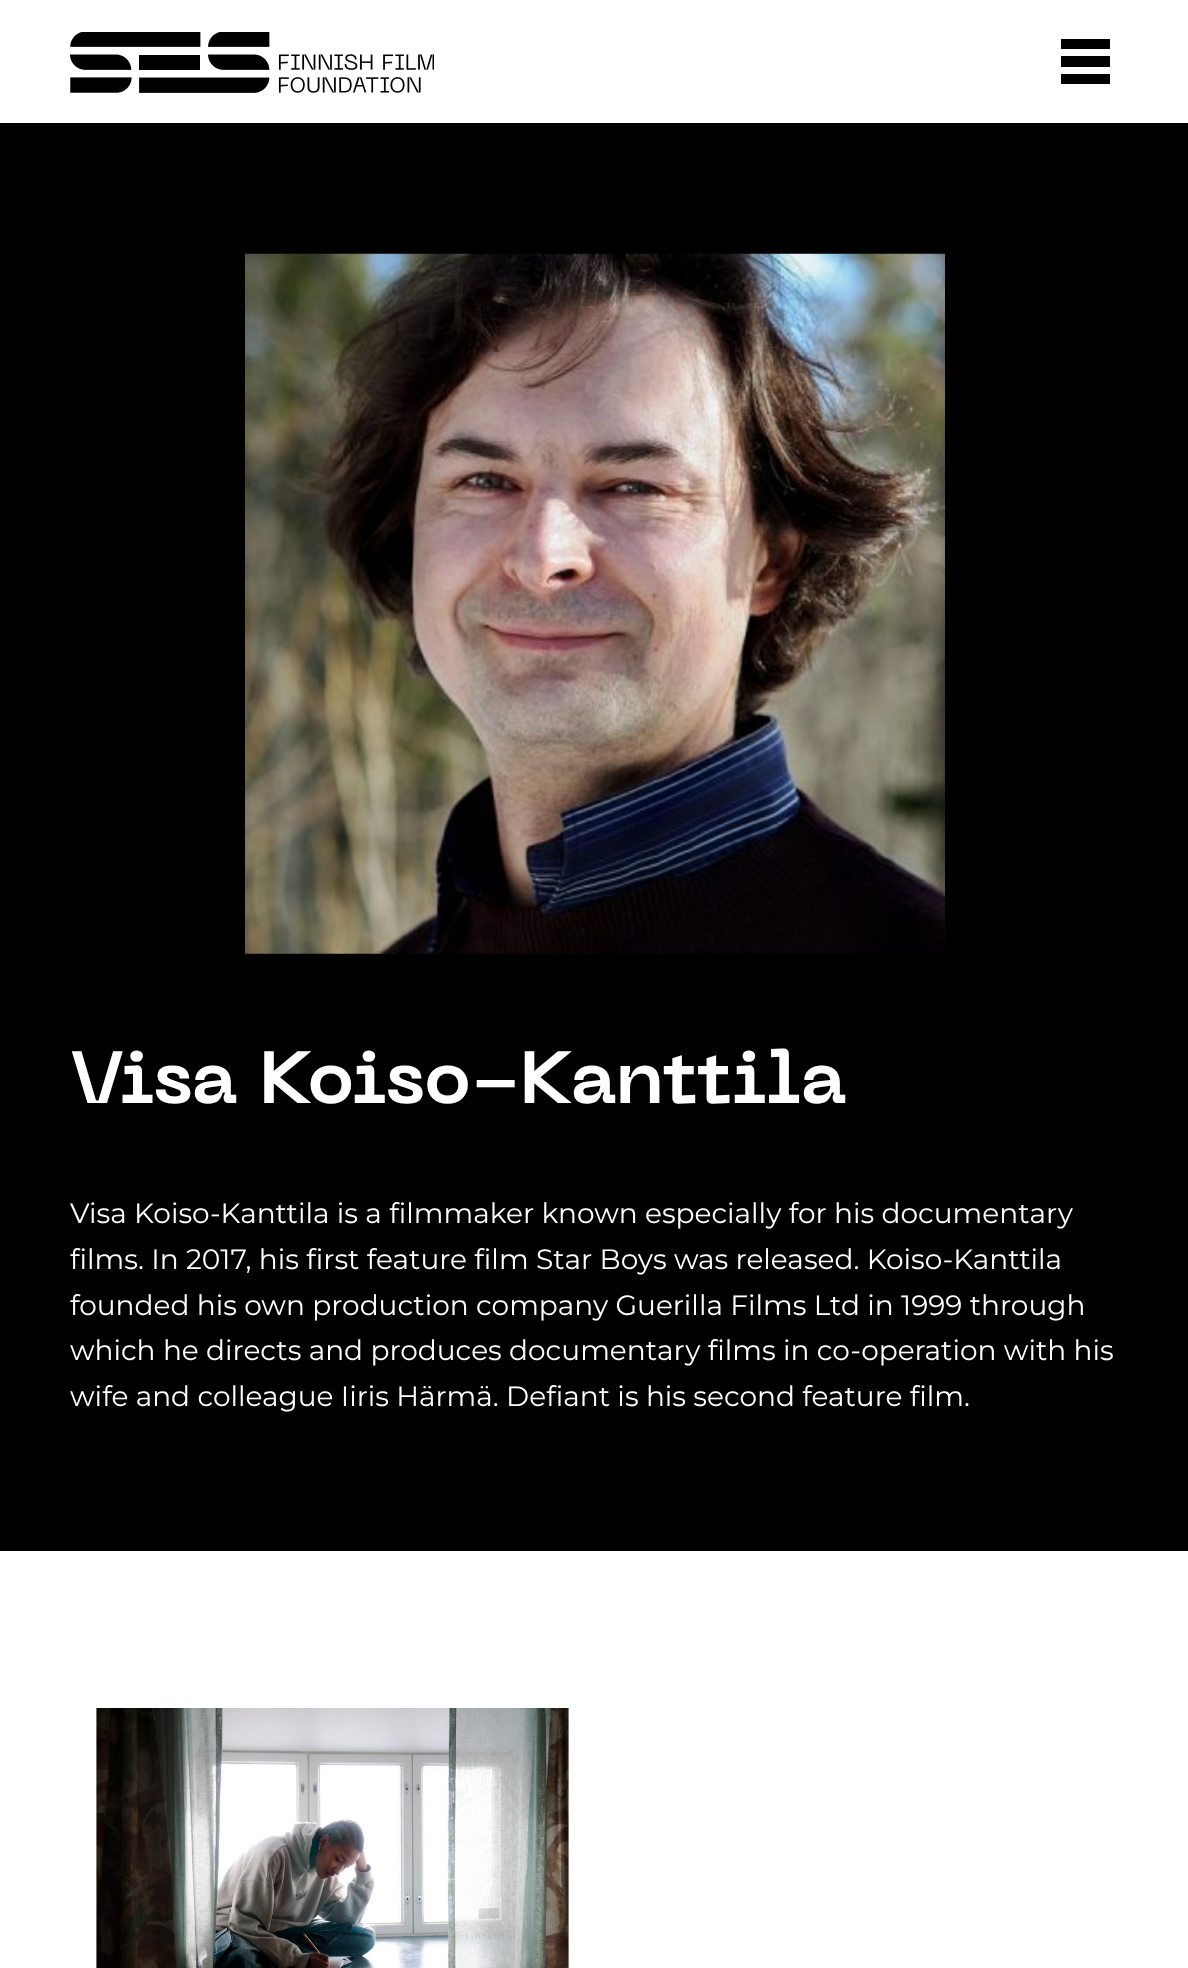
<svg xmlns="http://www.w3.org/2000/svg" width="1188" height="1968">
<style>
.a{font:bold 73.5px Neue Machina;fill:#fff}
.b{font:28px Montserrat;fill:#fff}
</style>
<rect width="100%" height="100%" fill="#fff"/>
<image href="1.png" x="70" y="32" width="364" height="61"/>
<path fill="#000" d="M1061 39h49v10H1061z"/>
<path fill="#000" d="M1061 56h49v11H1061z"/>
<path fill="#000" d="M1061 74h49v10H1061z"/>
<path fill="#000" d="M0 123h1188v1428H0z"/>
<image href="2.png" x="245" y="253" width="700" height="701"/>
<path fill="#f2f2f2" d="M96 1708h473v260H96z"/>
<image href="3.png" x="96" y="1708" width="473" height="260"/>
<text class="a" x="70" y="1103">Visa Koiso-Kanttila</text>
<text class="b" x="70" y="1223">Visa Koiso-Kanttila is a filmmaker known especially for his documentary</text>
<text class="b" x="70" y="1269">films. In 2017, his first feature film Star Boys was released. Koiso-Kanttila</text>
<text class="b" x="70" y="1315">founded his own production company Guerilla Films Ltd in 1999 through</text>
<text class="b" x="70" y="1360">which he directs and produces documentary films in co-operation with his</text>
<text class="b" x="70" y="1406">wife and colleague Iiris Härmä. Defiant is his second feature film.</text>
</svg>
